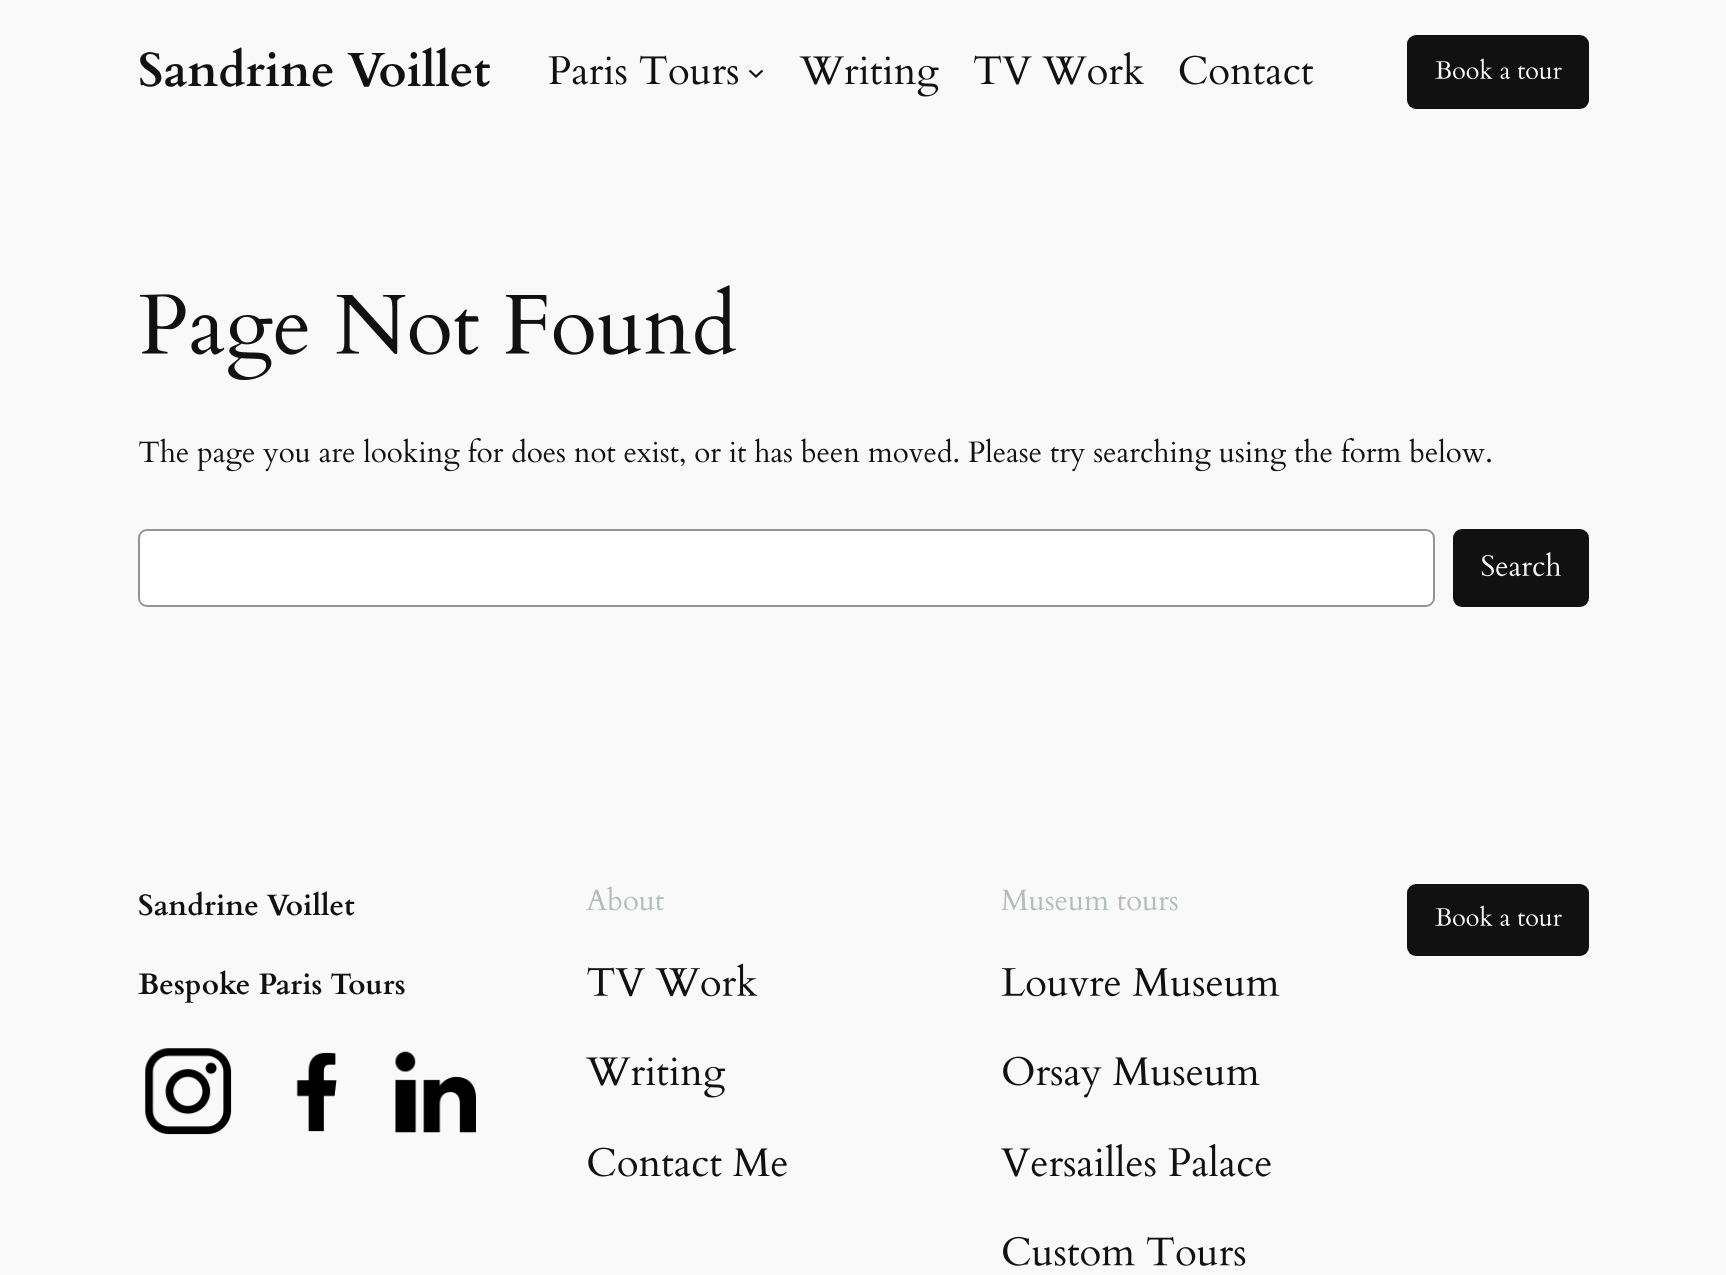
<svg xmlns="http://www.w3.org/2000/svg" width="1726" height="1275">
<style>
.a{font:bold 48px Cardo;fill:#111}
.b{font:bold 29.5px Cardo;fill:#111}
</style>
<rect width="100%" height="100%" fill="#f9f9f9"/>
<image href="1.png" x="548" y="55" width="191" height="30"/>
<path fill="none" stroke="#111" stroke-width="2.2" d="M749.5 70.5l6.5 6l6.5-6"/>
<image href="2.png" x="799" y="56" width="140" height="41"/>
<image href="3.png" x="974" y="51" width="170" height="34"/>
<image href="4.png" x="1179" y="55" width="134" height="30"/>
<rect fill="#111" x="1407" y="35" width="182" height="74" rx="9"/>
<image href="5.png" x="1435" y="58" width="127" height="22"/>
<image href="6.png" x="139" y="285" width="597" height="95"/>
<image href="7.png" x="139" y="438" width="1352" height="34"/>
<rect fill="#fff" stroke="#949494" stroke-width="2" x="139" y="530" width="1295" height="76" rx="8"/>
<rect fill="#111" x="1453" y="529" width="136" height="78" rx="9"/>
<image href="8.png" x="1481" y="552" width="80" height="25"/>
<image href="9.png" x="145" y="1048" width="87" height="87"/>
<image href="10.png" x="296" y="1052" width="41" height="80"/>
<image href="11.png" x="395" y="1051" width="81" height="82"/>
<image href="12.png" x="586" y="886" width="78" height="25"/>
<image href="13.png" x="587" y="963" width="171" height="34"/>
<image href="14.png" x="586" y="1057" width="140" height="41"/>
<image href="15.png" x="588" y="1147" width="199" height="30"/>
<image href="16.png" x="1001" y="889" width="177" height="22"/>
<image href="17.png" x="1001" y="968" width="279" height="29"/>
<image href="18.png" x="1003" y="1056" width="257" height="42"/>
<image href="19.png" x="1001" y="1143" width="270" height="34"/>
<image href="20.png" x="1003" y="1236" width="243" height="30"/>
<rect fill="#111" x="1407" y="884" width="182" height="72" rx="9"/>
<image href="5.png" x="1435" y="905" width="127" height="22"/>
<text class="a" x="138" y="86">Sandrine Voillet</text>
<text class="b" x="138" y="915">Sandrine Voillet</text>
<text class="b" x="138" y="994">Bespoke Paris Tours</text>
</svg>
